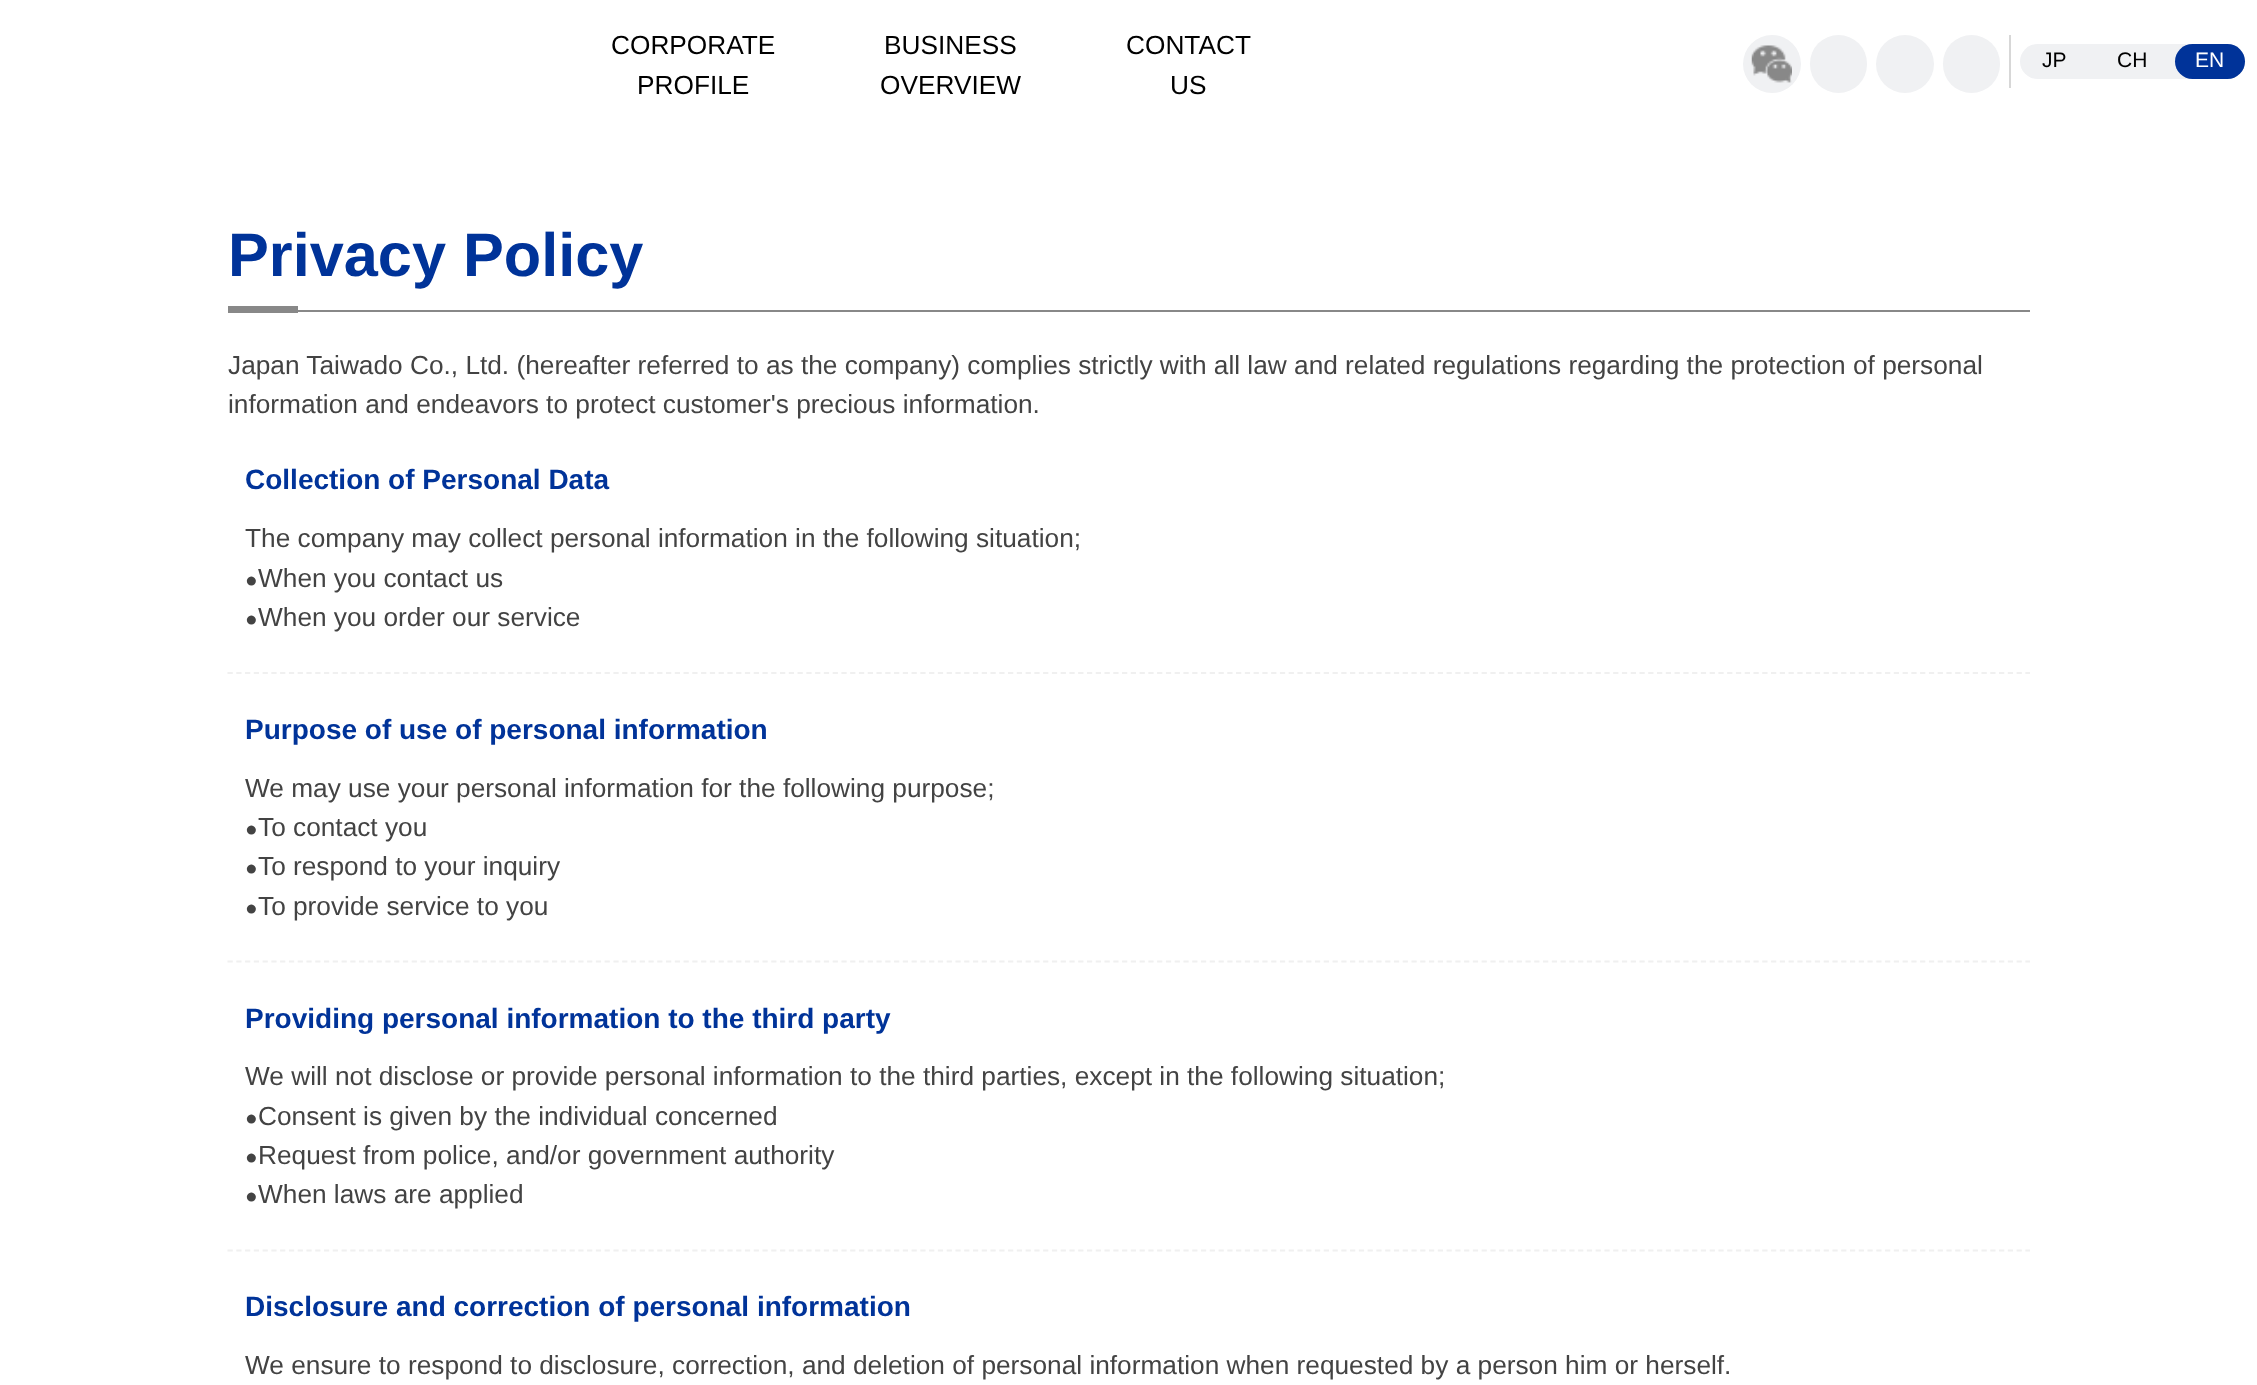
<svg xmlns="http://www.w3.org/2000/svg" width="2257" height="1385">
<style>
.a{font:26.25px Liberation Sans;fill:#000}
.b{font:21px Liberation Sans;fill:#000}
.c{font:21px Liberation Sans;fill:#fff}
.d{font:bold 61.25px Liberation Sans;fill:#039}
.e{font:26.25px Liberation Sans;fill:#434343}
.f{font:bold 28px Liberation Sans;fill:#039}
.g{font:21px Liberation Sans;fill:#434343}
</style>
<rect width="100%" height="100%" fill="#fff"/>
<circle fill="#f0f1f3" cx="1772" cy="64" r="29"/>
<image href="1.png" x="1751" y="45" width="41" height="38"/>
<rect fill="#f0f1f3" x="1810" y="35" width="57" height="58" rx="28.5"/>
<circle fill="#f0f1f3" cx="1905" cy="64" r="29"/>
<rect fill="#f0f1f3" x="1943" y="35" width="57" height="58" rx="28.5"/>
<path fill="#d7d7d7" d="M2009 35h2v53H2009z"/>
<rect fill="#f0f1f3" x="2020" y="44" width="225" height="35" rx="17.5"/>
<rect fill="#039" x="2175" y="44" width="70" height="35" rx="17.5"/>
<path fill="#888" d="M298 310h1732v2H298z"/>
<path fill="#888" d="M228 306h70v7H228z"/>
<path fill="none" stroke="#f0f0f0" stroke-width="1.8" stroke-dasharray="5.25 3.52" d="M227.5 673h1802.5"/>
<path fill="none" stroke="#f0f0f0" stroke-width="1.8" stroke-dasharray="5.25 3.52" d="M227.5 961.5h1802.5"/>
<path fill="none" stroke="#f0f0f0" stroke-width="1.8" stroke-dasharray="5.25 3.52" d="M227.5 1250.5h1802.5"/>
<text class="a" x="611" y="54">CORPORATE</text>
<text class="a" x="637" y="94">PROFILE</text>
<text class="a" x="884" y="54">BUSINESS</text>
<text class="a" x="880" y="94">OVERVIEW</text>
<text class="a" x="1126" y="54">CONTACT</text>
<text class="a" x="1170" y="94">US</text>
<text class="b" x="2042" y="67">JP</text>
<text class="b" x="2117" y="67">CH</text>
<text class="c" x="2195" y="67">EN</text>
<text class="d" x="228" y="276">Privacy Policy</text>
<text class="e" x="228" y="374">Japan Taiwado Co., Ltd. (hereafter referred to as the company) complies strictly with all law and related regulations regarding the protection of personal</text>
<text class="e" x="228" y="413">information and endeavors to protect customer's precious information.</text>
<text class="f" x="245" y="489">Collection of Personal Data</text>
<text class="e" x="245" y="547">The company may collect personal information in the following situation;</text>
<text class="g" x="245" y="587">●</text>
<text class="e" x="258" y="587">When you contact us</text>
<text class="g" x="245" y="626">●</text>
<text class="e" x="258" y="626">When you order our service</text>
<text class="f" x="245" y="739">Purpose of use of personal information</text>
<text class="e" x="245" y="797">We may use your personal information for the following purpose;</text>
<text class="g" x="245" y="836">●</text>
<text class="e" x="258" y="836">To contact you</text>
<text class="g" x="245" y="875">●</text>
<text class="e" x="258" y="875">To respond to your inquiry</text>
<text class="g" x="245" y="915">●</text>
<text class="e" x="258" y="915">To provide service to you</text>
<text class="f" x="245" y="1028">Providing personal information to the third party</text>
<text class="e" x="245" y="1085">We will not disclose or provide personal information to the third parties, except in the following situation;</text>
<text class="g" x="245" y="1125">●</text>
<text class="e" x="258" y="1125">Consent is given by the individual concerned</text>
<text class="g" x="245" y="1164">●</text>
<text class="e" x="258" y="1164">Request from police, and/or government authority</text>
<text class="g" x="245" y="1203">●</text>
<text class="e" x="258" y="1203">When laws are applied</text>
<text class="f" x="245" y="1316">Disclosure and correction of personal information</text>
<text class="e" x="245" y="1374">We ensure to respond to disclosure, correction, and deletion of personal information when requested by a person him or herself.</text>
</svg>
